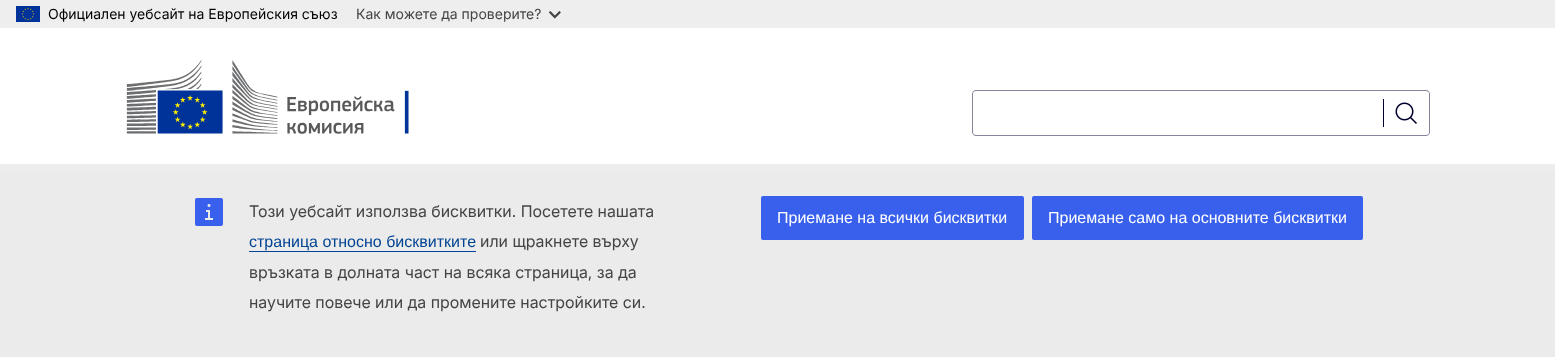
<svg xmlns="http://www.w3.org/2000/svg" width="1555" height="357">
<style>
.a{font:14px Inter;fill:#000}
.b{font:14px Inter;fill:#444}
.c{font:16px 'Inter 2';fill:#444}
.d{font:16px Liberation Sans;fill:#004494}
.e{font:16px Liberation Sans;fill:#fff}
</style>
<rect width="100%" height="100%" fill="#fff"/>
<path fill="#eee" d="M0 0h1555v28H0z"/>
<image href="1.png" x="16" y="6" width="24" height="16"/>
<image href="2.png" x="549" y="11" width="12" height="8"/>
<image href="3.png" x="126" y="60" width="283" height="74"/>
<path fill="#84849b" fill-rule="evenodd" d="M976 90h408v46h-408c-2 0-4-2-4-4v-38c0-2 2-4 4-4zm0 1h408v44h-408c-2 0-3-1-3-3v-38c0-2 1-3 3-3z"/>
<path fill="#84849b" fill-rule="evenodd" d="M1384 90h42c2 0 4 2 4 4v38c0 2-2 4-4 4h-42zm0 1h42c2 0 3 1 3 3v38c0 2-1 3-3 3h-42z"/>
<path fill="#00002e" d="M1383 99h1v28H1383z"/>
<image href="4.png" x="1395" y="102" width="22" height="22"/>
<path fill="#ededf0" d="M0 164h1555v8H0z"/>
<path fill="#ebebeb" d="M0 172h1555v185H0z"/>
<image href="5.png" x="195" y="198" width="28" height="28"/>
<path fill="#004494" d="M249 251h227v1H249z"/>
<rect fill="#3860ed" x="761" y="196" width="263" height="44" rx="2"/>
<rect fill="#3860ed" x="1032" y="196" width="331" height="44" rx="2"/>
<text class="a" x="48" y="19">Официален уебсайт на Европейския съюз</text>
<text class="b" x="356" y="19">Как можете да проверите?</text>
<text class="c" x="249" y="217">Този уебсайт използва бисквитки. Посетете нашата</text>
<text class="d" x="249" y="247">страница относно бисквитките</text>
<text class="c" x="480" y="247">или щракнете върху</text>
<text class="c" x="249" y="278">връзката в долната част на всяка страница, за да</text>
<text class="c" x="249" y="308">научите повече или да промените настройките си.</text>
<text class="e" x="777" y="223">Приемане на всички бисквитки</text>
<text class="e" x="1048" y="223">Приемане само на основните бисквитки</text>
</svg>
